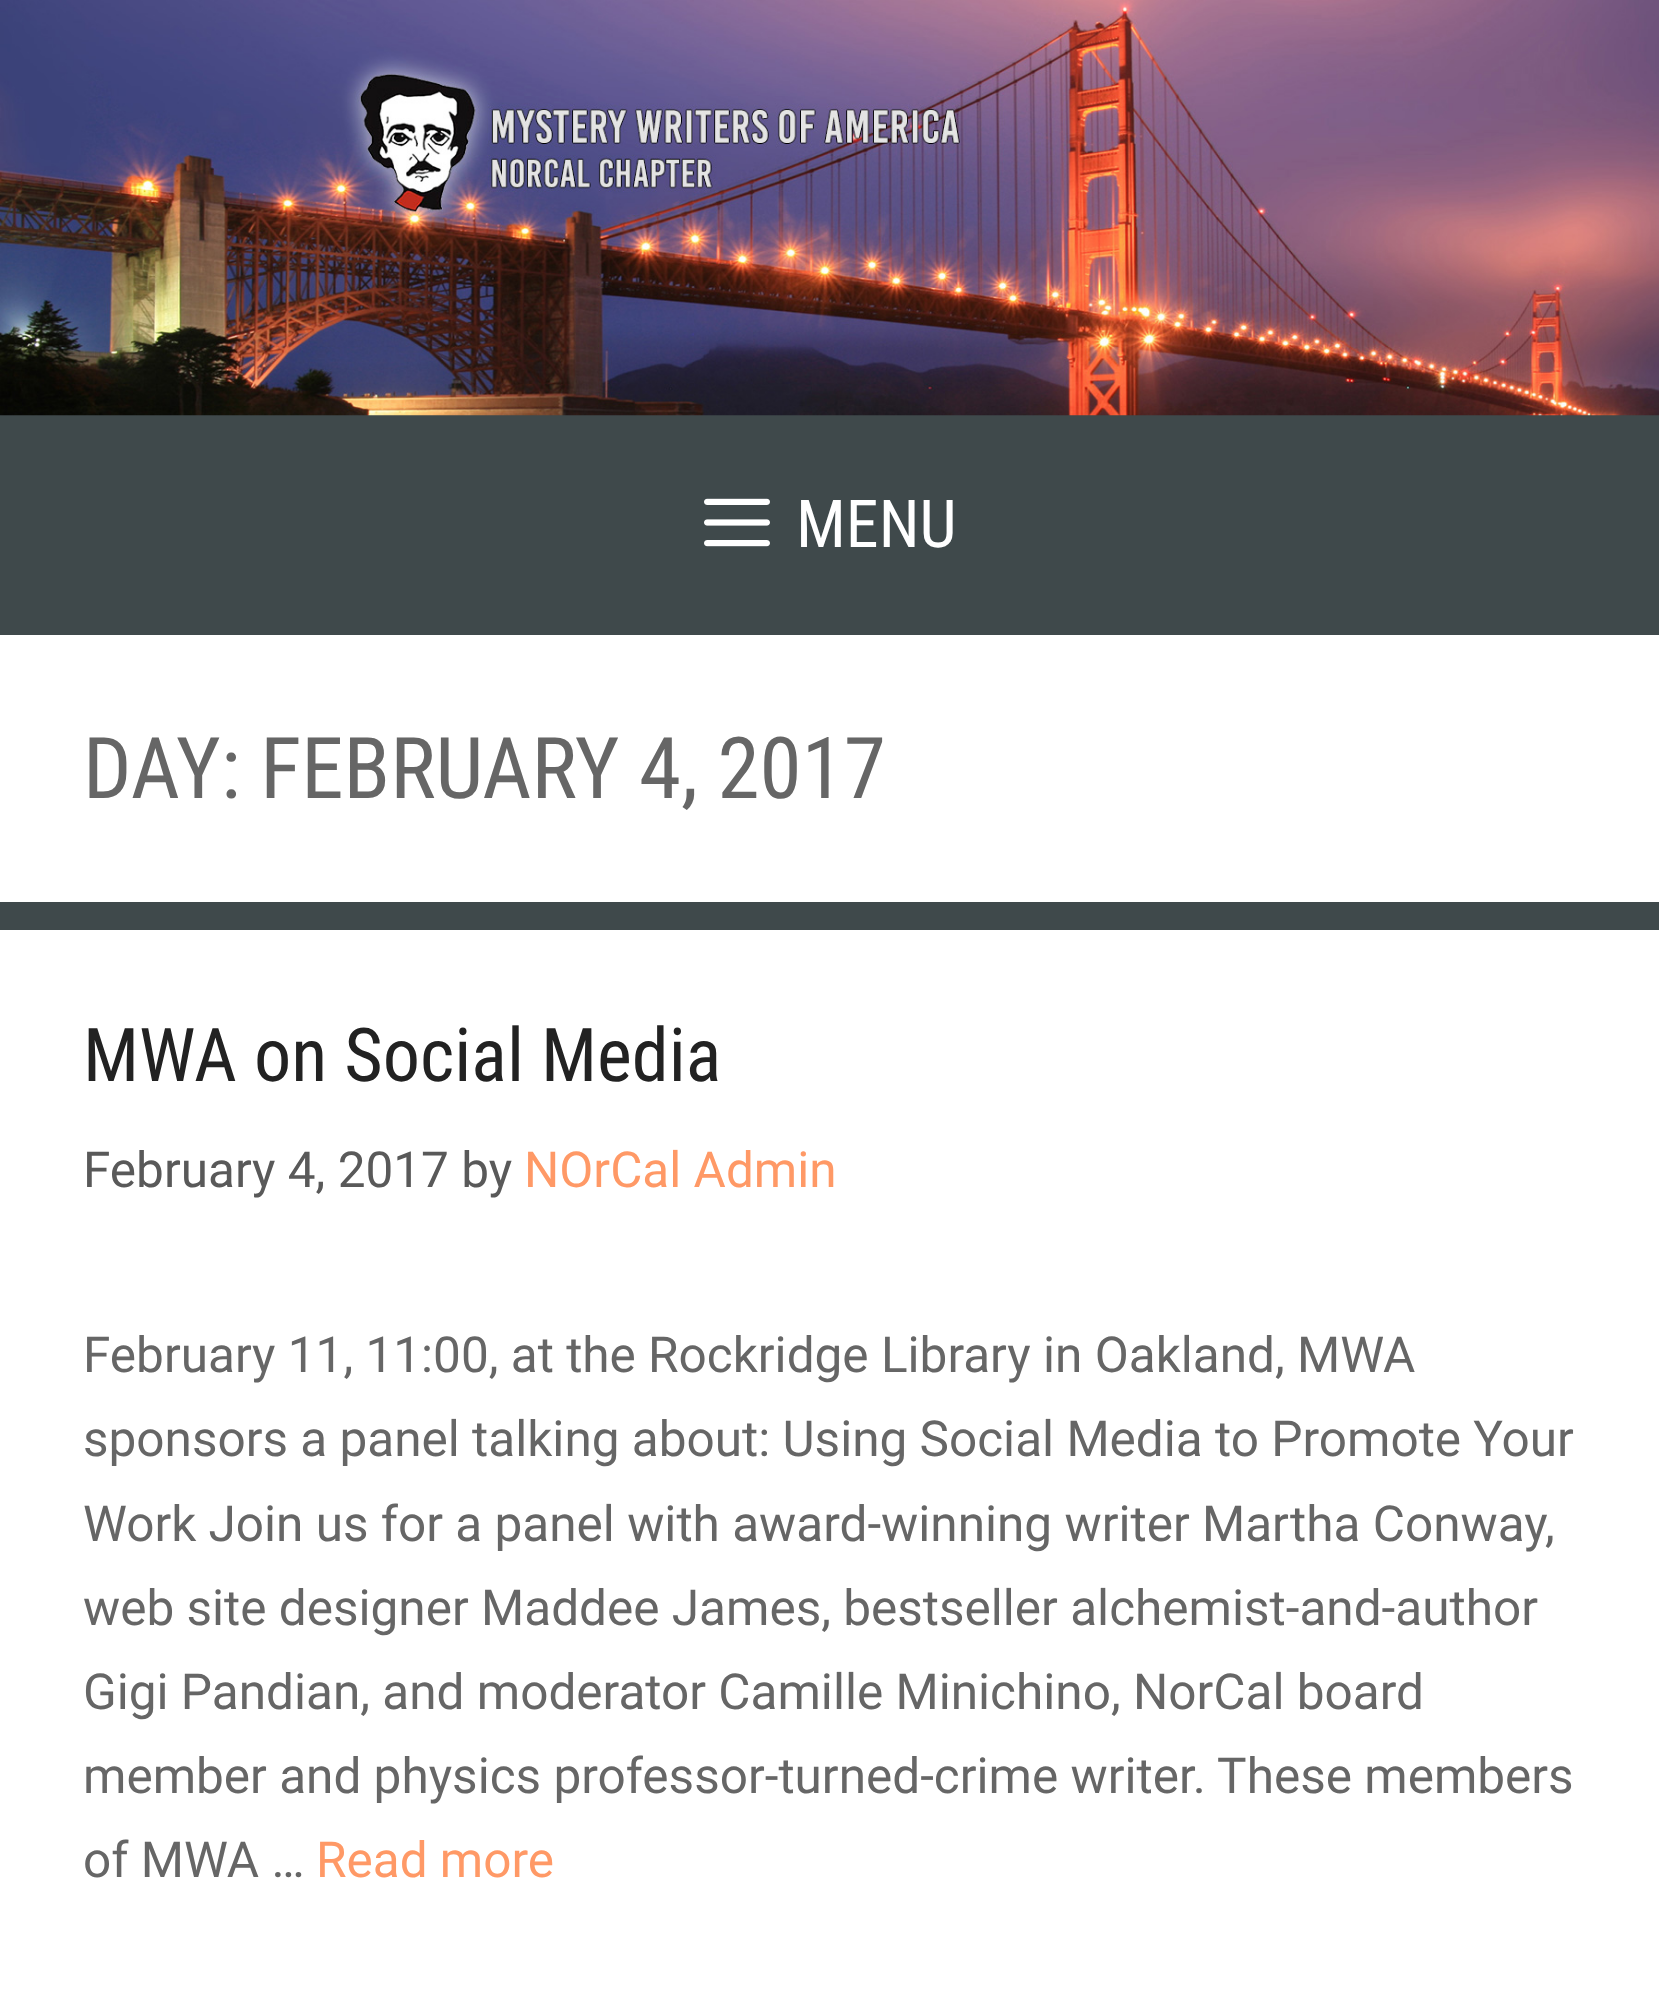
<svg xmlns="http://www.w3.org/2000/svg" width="1659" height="2004">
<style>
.a{font:66px Roboto Condensed;fill:#fff}
.b{font:85.25px Roboto Condensed;fill:#666}
.c{font:74.25px Roboto Condensed;fill:#222}
.d{font:49.5px Roboto;fill:#595959}
.e{font:49.5px Roboto;fill:#f96}
.f{font:49.5px Roboto;fill:#666}
</style>
<rect width="100%" height="100%" fill="#3f494b"/>
<image href="1.png" x="0" y="0" width="1659" height="416"/>
<image href="2.png" x="704" y="498" width="66" height="49"/>
<path fill="#fff" d="M0 635h1659v267H0z"/>
<path fill="#fff" d="M0 930h1659v1074H0z"/>
<text class="a" x="796" y="547">MENU</text>
<text class="b" x="83" y="798">DAY: FEBRUARY 4, 2017</text>
<text class="c" x="83" y="1081">MWA on Social Media</text>
<text class="d" x="83" y="1187">February 4, 2017 by</text>
<text class="e" x="524" y="1187">NOrCal Admin</text>
<text class="f" x="83" y="1372">February 11, 11:00, at the Rockridge Library in Oakland, MWA</text>
<text class="f" x="83" y="1456">sponsors a panel talking about: Using Social Media to Promote Your</text>
<text class="f" x="83" y="1541">Work Join us for a panel with award-winning writer Martha Conway,</text>
<text class="f" x="83" y="1625">web site designer Maddee James, bestseller alchemist-and-author</text>
<text class="f" x="83" y="1709">Gigi Pandian, and moderator Camille Minichino, NorCal board</text>
<text class="f" x="83" y="1793">member and physics professor-turned-crime writer. These members</text>
<text class="f" x="83" y="1877">of MWA …</text>
<text class="e" x="316" y="1877">Read more</text>
</svg>
